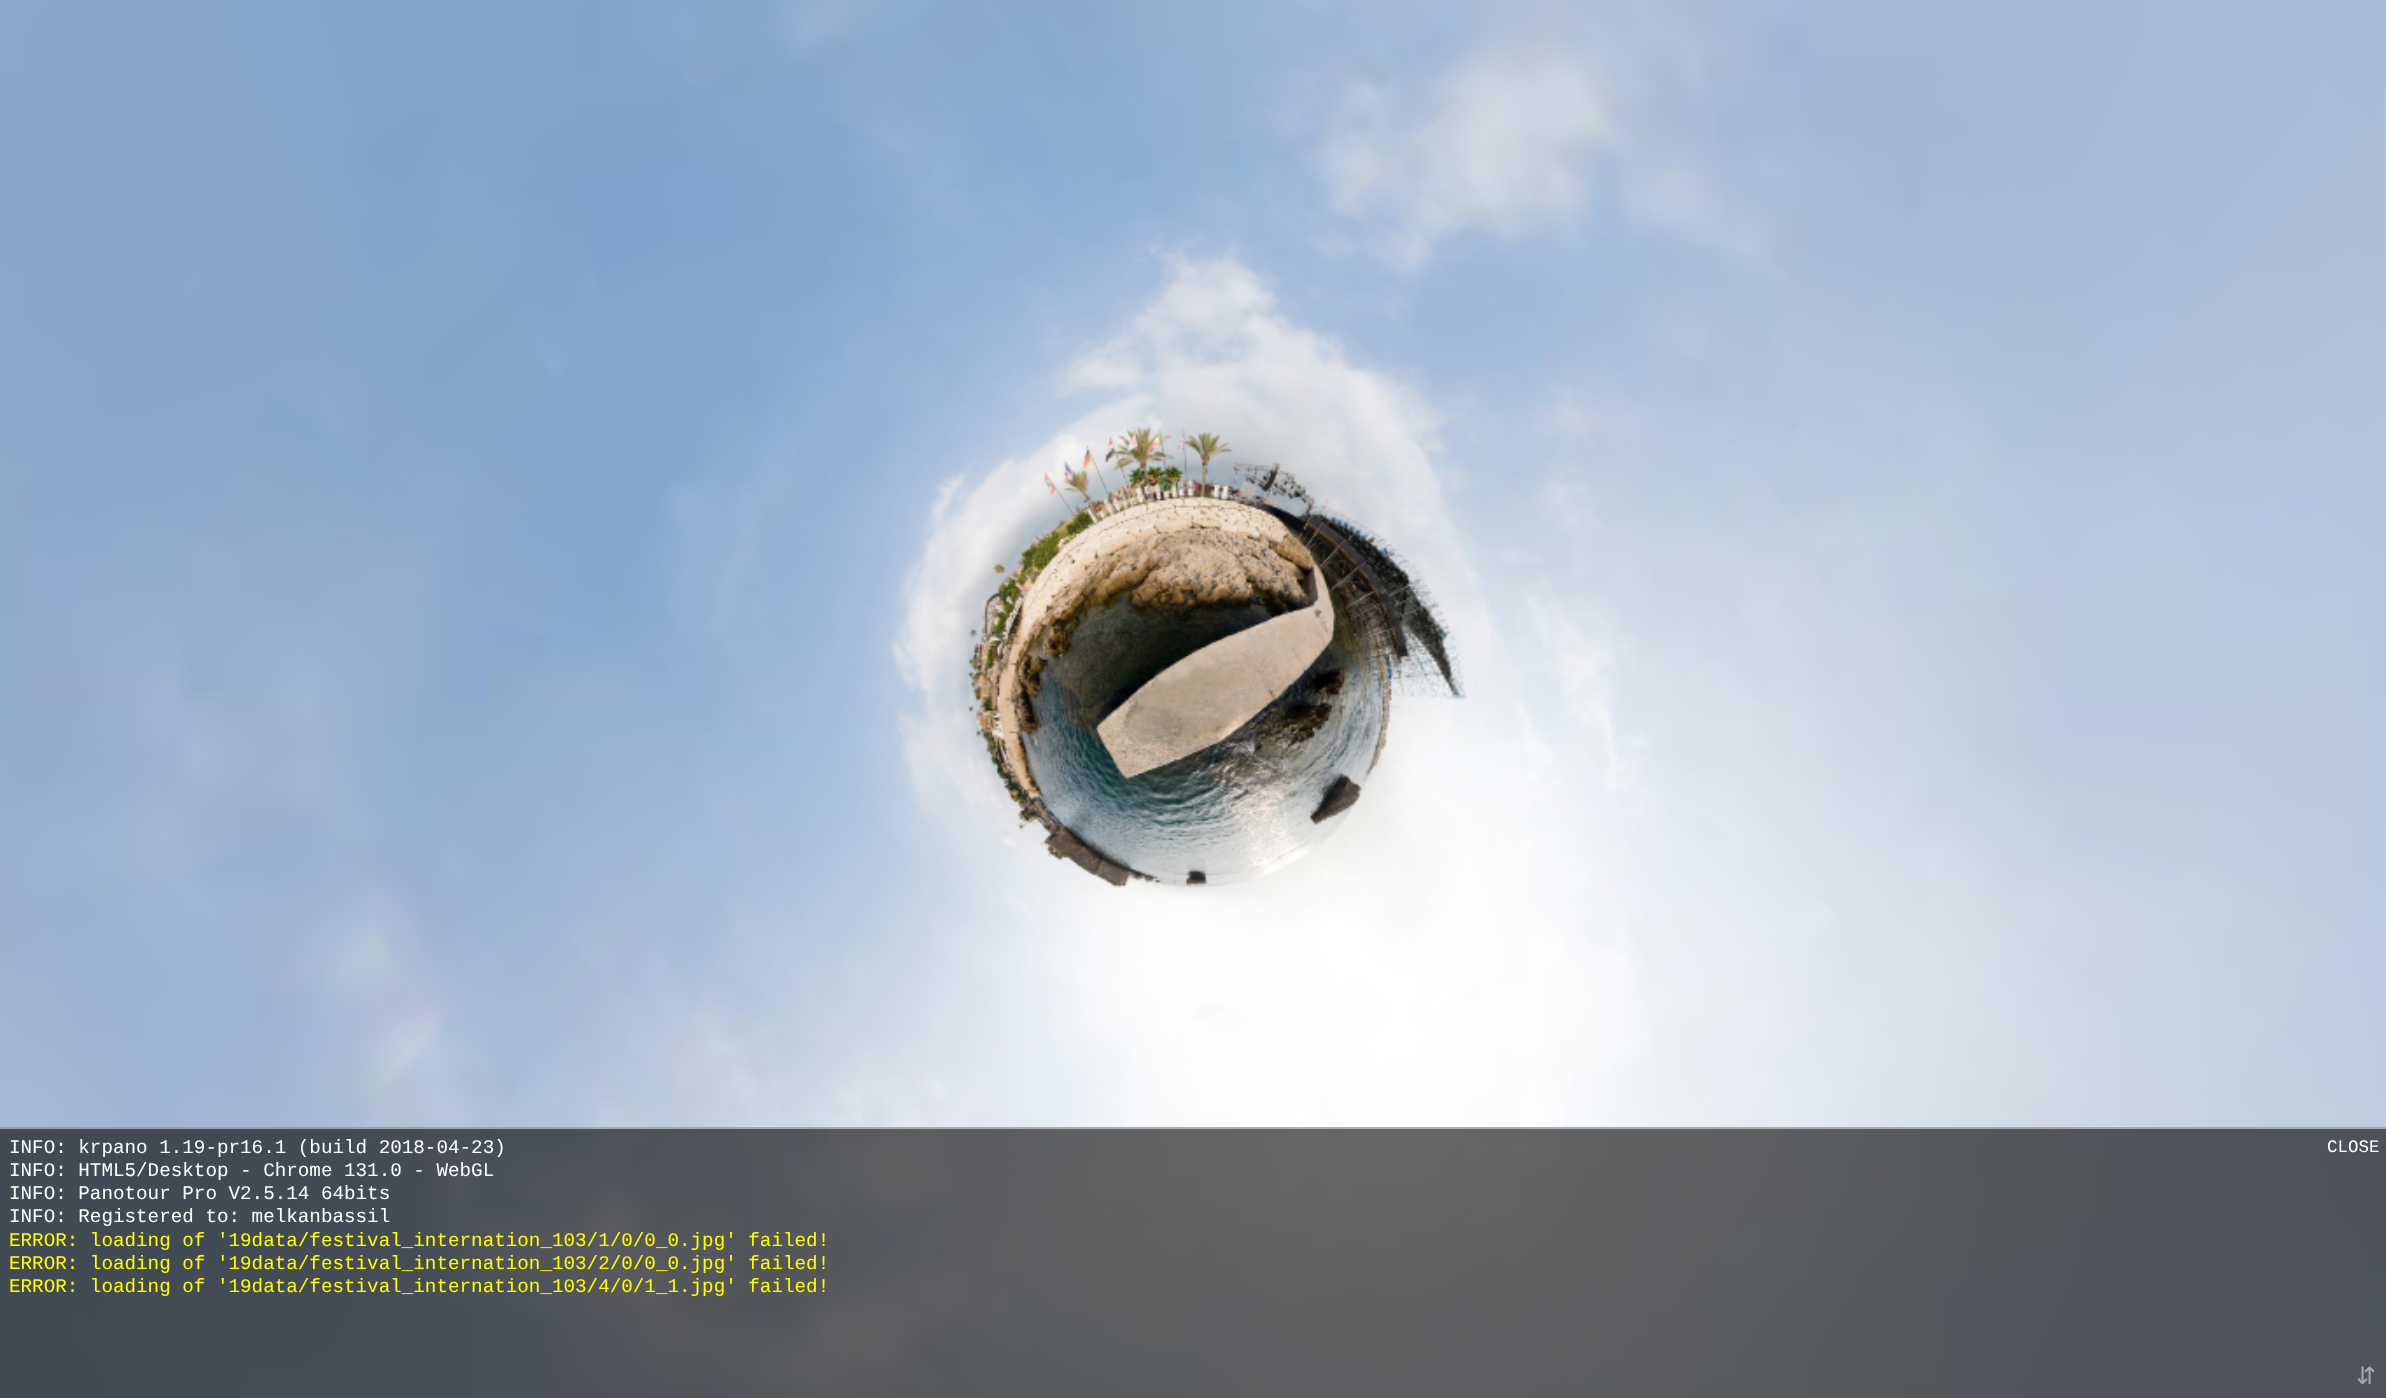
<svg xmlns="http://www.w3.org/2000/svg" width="2386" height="1398">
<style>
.a{font:19.25px Liberation Mono;fill:#fff}
.b{font:19.25px Liberation Mono;fill:#ff0}
.c{font:17.5px Liberation Mono;fill:#fff}
.d{font:24px DejaVu Sans;fill:#aaa}
</style>
<rect width="100%" height="100%" fill="#fff"/>
<image href="1.png" x="0" y="0" width="2386" height="1398"/>
<path fill="#00000099" d="M0 1127h2386v271H0z"/>
<path fill="#ffffff7a" d="M0 1127h2386v2H0z"/>
<text class="a" x="9" y="1153">INFO: krpano 1.19-pr16.1 (build 2018-04-23)</text>
<text class="a" x="9" y="1176">INFO: HTML5/Desktop - Chrome 131.0 - WebGL</text>
<text class="a" x="9" y="1199">INFO: Panotour Pro V2.5.14 64bits</text>
<text class="a" x="9" y="1222">INFO: Registered to: melkanbassil</text>
<text class="b" x="9" y="1246">ERROR: loading of '19data/festival_internation_103/1/0/0_0.jpg' failed!</text>
<text class="b" x="9" y="1269">ERROR: loading of '19data/festival_internation_103/2/0/0_0.jpg' failed!</text>
<text class="b" x="9" y="1292">ERROR: loading of '19data/festival_internation_103/4/0/1_1.jpg' failed!</text>
<text class="c" x="2327" y="1152">CLOSE</text>
<text class="d" x="2356" y="1384">⇵</text>
</svg>
